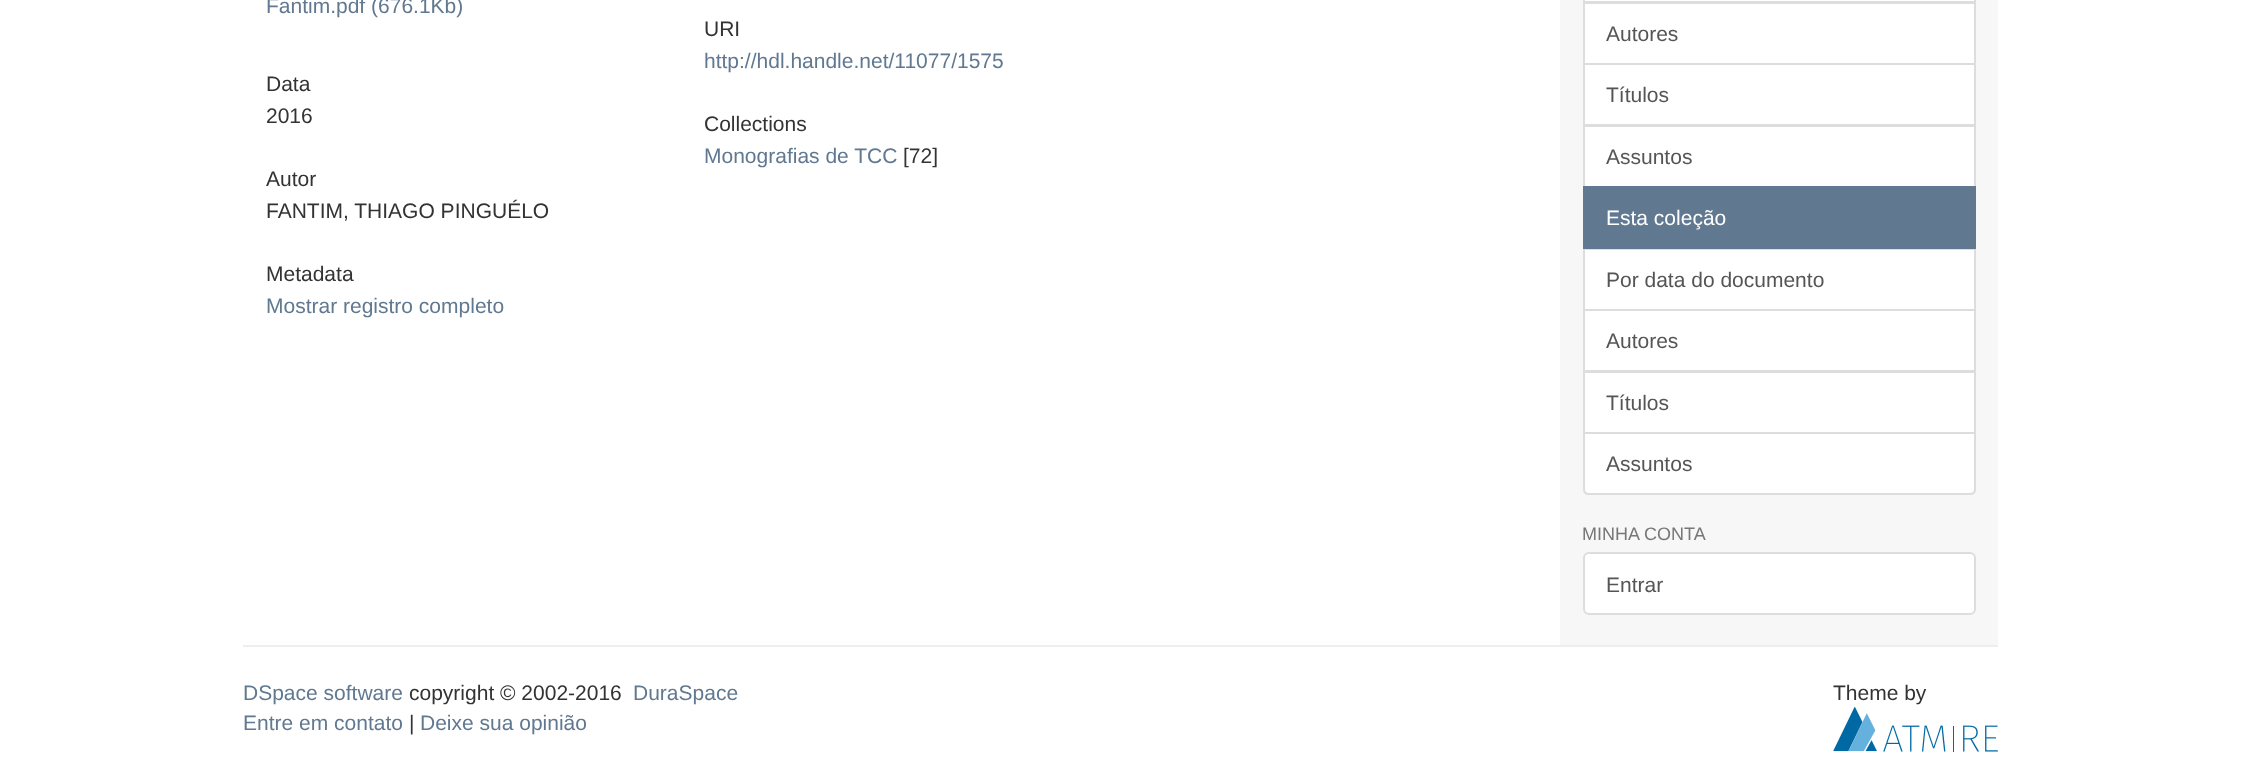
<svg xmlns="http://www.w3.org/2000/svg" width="2241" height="768">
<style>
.a{font:21px Liberation Sans;fill:#607890}
.b{font:21px Liberation Sans;fill:#333}
.c{font:21px Liberation Sans;fill:#555}
.d{font:21px Liberation Sans;fill:#fff}
.e{font:18px Liberation Sans;fill:#777}
</style>
<rect width="100%" height="100%" fill="#fff"/>
<path fill="#f7f7f7" d="M1560 0h438v645H1560z"/>
<path fill="#fff" stroke="#ddd" stroke-width="2" d="M1584 -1h391v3H1584z"/>
<path fill="#fff" stroke="#ddd" stroke-width="2" d="M1584 3h391v61H1584z"/>
<path fill="#fff" stroke="#ddd" stroke-width="2" d="M1584 64h391v61H1584z"/>
<path fill="#fff" stroke="#ddd" stroke-width="2" d="M1584 126h391v61H1584z"/>
<path fill="#fff" stroke="#ddd" stroke-width="2" d="M1584 249h391v61H1584z"/>
<path fill="#607890" d="M1583 186h393v63H1583z"/>
<path fill="#fff" stroke="#ddd" stroke-width="2" d="M1584 310h391v61H1584z"/>
<path fill="#fff" stroke="#ddd" stroke-width="2" d="M1584 372h391v61H1584z"/>
<path fill="#fff" stroke="#ddd" stroke-width="2" d="M1584 433h391v56c0 3-2 5-5 5h-381c-3 0-5-2-5-5z"/>
<rect fill="#fff" stroke="#ddd" stroke-width="2" x="1584" y="553" width="391" height="61" rx="5"/>
<path fill="#eee" d="M243 645h1755v2H243z"/>
<image href="1.png" x="1833" y="707" width="165" height="45"/>
<text class="a" x="266" y="13">Fantim.pdf (676.1Kb)</text>
<text class="b" x="266" y="91">Data</text>
<text class="b" x="266" y="123">2016</text>
<text class="b" x="266" y="186">Autor</text>
<text class="b" x="266" y="218">FANTIM, THIAGO PINGUÉLO</text>
<text class="b" x="266" y="281">Metadata</text>
<text class="a" x="266" y="313">Mostrar registro completo</text>
<text class="b" x="704" y="36">URI</text>
<text class="a" x="704" y="68">http://hdl.handle.net/11077/1575</text>
<text class="b" x="704" y="131">Collections</text>
<text class="a" x="704" y="163">Monografias de TCC</text>
<text class="b" x="903" y="163">[72]</text>
<text class="c" x="1606" y="41">Autores</text>
<text class="c" x="1606" y="102">Títulos</text>
<text class="c" x="1606" y="164">Assuntos</text>
<text class="d" x="1606" y="225">Esta coleção</text>
<text class="c" x="1606" y="287">Por data do documento</text>
<text class="c" x="1606" y="348">Autores</text>
<text class="c" x="1606" y="410">Títulos</text>
<text class="c" x="1606" y="471">Assuntos</text>
<text class="e" x="1582" y="540">MINHA CONTA</text>
<text class="c" x="1606" y="592">Entrar</text>
<text class="a" x="243" y="700">DSpace software</text>
<text class="b" x="409" y="700">copyright © 2002-2016</text>
<text class="a" x="633" y="700">DuraSpace</text>
<text class="a" x="243" y="730">Entre em contato</text>
<text class="b" x="409" y="730">|</text>
<text class="a" x="420" y="730">Deixe sua opinião</text>
<text class="b" x="1833" y="700">Theme by</text>
</svg>
